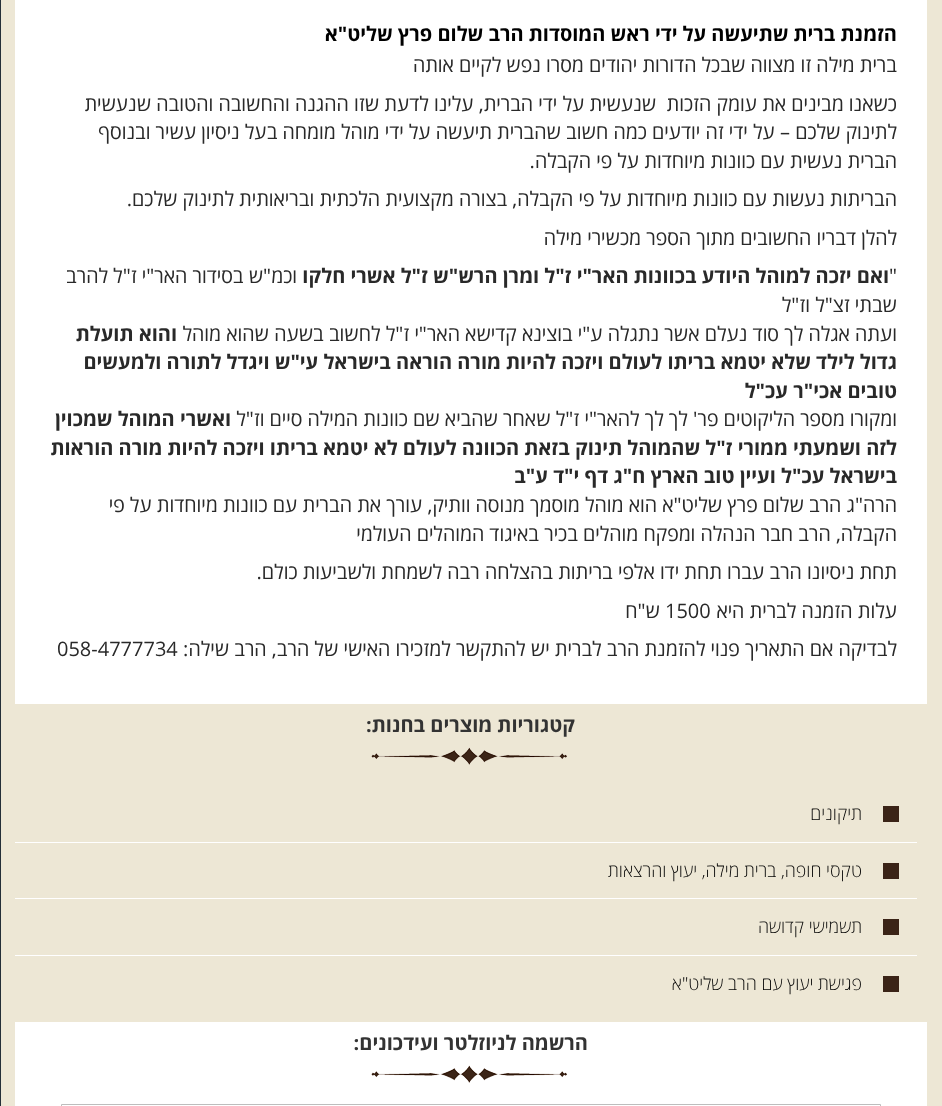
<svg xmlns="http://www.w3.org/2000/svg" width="942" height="1106">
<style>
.a{font:bold 20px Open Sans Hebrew;direction:rtl;fill:#000}
.b{font:20px Open Sans Hebrew;direction:rtl;fill:#292929}
.c{font:20px Open Sans Hebrew;fill:#292929}
.d{font:bold 20px Open Sans Hebrew;direction:rtl;fill:#292929}
.e{font:bold 20px Open Sans Hebrew;direction:rtl;fill:#333}
.f{font:300 18px Open Sans Hebrew;direction:rtl;fill:#000}
</style>
<rect width="100%" height="100%" fill="#ede7d5"/>
<path fill="#fff" d="M15 0h912v704H15z"/>
<image href="1.png" x="371" y="747" width="196" height="18"/>
<path fill="#fff" d="M15 842h902v1H15z"/>
<path fill="#3b2417" d="M883 806h16v16H883z"/>
<path fill="#fff" d="M15 898h902v1H15z"/>
<path fill="#3b2417" d="M883 863h16v16H883z"/>
<path fill="#fff" d="M15 955h902v1H15z"/>
<path fill="#3b2417" d="M883 919h16v16H883z"/>
<path fill="#3b2417" d="M883 976h16v16H883z"/>
<path fill="#fff" d="M15 1022h912v84H15z"/>
<image href="2.png" x="371" y="1065" width="197" height="18"/>
<path fill="none" stroke="#bdbdbd" d="M61.5 1104.5h819v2H61.5z"/>
<path fill="#242f38" d="M0 0h1v1106H0z"/>
<text class="a" x="897" y="41">הזמנת ברית שתיעשה על ידי ראש המוסדות הרב שלום פרץ שליט"א</text>
<text class="b" x="897" y="72">ברית מילה זו מצווה שבכל הדורות יהודים מסרו נפש לקיים אותה</text>
<text class="b" xml:space="preserve" x="897" y="111">כשאנו מבינים את עומק הזכות  שנעשית על ידי הברית, עלינו לדעת שזו ההגנה והחשובה והטובה שנעשית</text>
<text class="b" x="897" y="139">לתינוק שלכם – על ידי זה יודעים כמה חשוב שהברית תיעשה על ידי מוהל מומחה בעל ניסיון עשיר ובנוסף</text>
<text class="b" x="897" y="168">הברית נעשית עם כוונות מיוחדות על פי הקבלה.</text>
<text class="b" x="897" y="206">הבריתות נעשות עם כוונות מיוחדות על פי הקבלה, בצורה מקצועית הלכתית ובריאותית לתינוק שלכם.</text>
<text class="b" x="897" y="245">להלן דבריו החשובים מתוך הספר מכשירי מילה</text>
<text class="c" x="889" y="283">"</text>
<text class="d" x="889" y="283">ואם יזכה למוהל היודע בכוונות האר"י ז"ל ומרן הרש"ש ז"ל אשרי חלקו</text>
<text class="b" x="297" y="283">וכמ"ש בסידור האר"י ז"ל להרב</text>
<text class="b" x="897" y="312">שבתי זצ"ל וז"ל</text>
<text class="b" x="897" y="341">ועתה אגלה לך סוד נעלם אשר נתגלה ע"י בוצינא קדישא האר"י ז"ל לחשוב בשעה שהוא מוהל</text>
<text class="d" x="177" y="341">והוא תועלת</text>
<text class="d" x="897" y="369">גדול לילד שלא יטמא בריתו לעולם ויזכה להיות מורה הוראה בישראל עי"ש ויגדל לתורה ולמעשים</text>
<text class="d" x="897" y="398">טובים אכי"ר עכ"ל</text>
<text class="b" x="897" y="426">ומקורו מספר הליקוטים פר' לך לך להאר"י ז"ל שאחר שהביא שם כוונות המילה סיים וז"ל</text>
<text class="d" x="231" y="426">ואשרי המוהל שמכוין</text>
<text class="d" x="897" y="455">לזה ושמעתי ממורי ז"ל שהמוהל תינוק בזאת הכוונה לעולם לא יטמא בריתו ויזכה להיות מורה הוראות</text>
<text class="d" x="897" y="483">בישראל עכ"ל ועיין טוב הארץ ח"ג דף י"ד ע"ב</text>
<text class="b" x="897" y="512">הרה"ג הרב שלום פרץ שליט"א הוא מוהל מוסמך מנוסה וותיק, עורך את הברית עם כוונות מיוחדות על פי</text>
<text class="b" x="897" y="541">הקבלה, הרב חבר הנהלה ומפקח מוהלים בכיר באיגוד המוהלים העולמי</text>
<text class="b" x="897" y="579">תחת ניסיונו הרב עברו תחת ידו אלפי בריתות בהצלחה רבה לשמחת ולשביעות כולם.</text>
<text class="b" x="897" y="618">עלות הזמנה לברית היא</text>
<text class="c" x="665" y="618">1500</text>
<text class="b" x="660" y="618">ש"ח</text>
<text class="b" x="897" y="656">לבדיקה אם התאריך פנוי להזמנת הרב לברית יש להתקשר למזכירו האישי של הרב, הרב שילה:</text>
<text class="c" x="57" y="656">058-4777734</text>
<text class="e" x="575" y="732">קטגוריות מוצרים בחנות:</text>
<text class="f" x="862" y="820">תיקונים</text>
<text class="f" x="862" y="877">טקסי חופה, ברית מילה, יעוץ והרצאות</text>
<text class="f" x="862" y="933">תשמישי קדושה</text>
<text class="f" x="862" y="990">פגישת יעוץ עם הרב שליט"א</text>
<text class="e" x="588" y="1050">הרשמה לניוזלטר ועידכונים:</text>
</svg>
